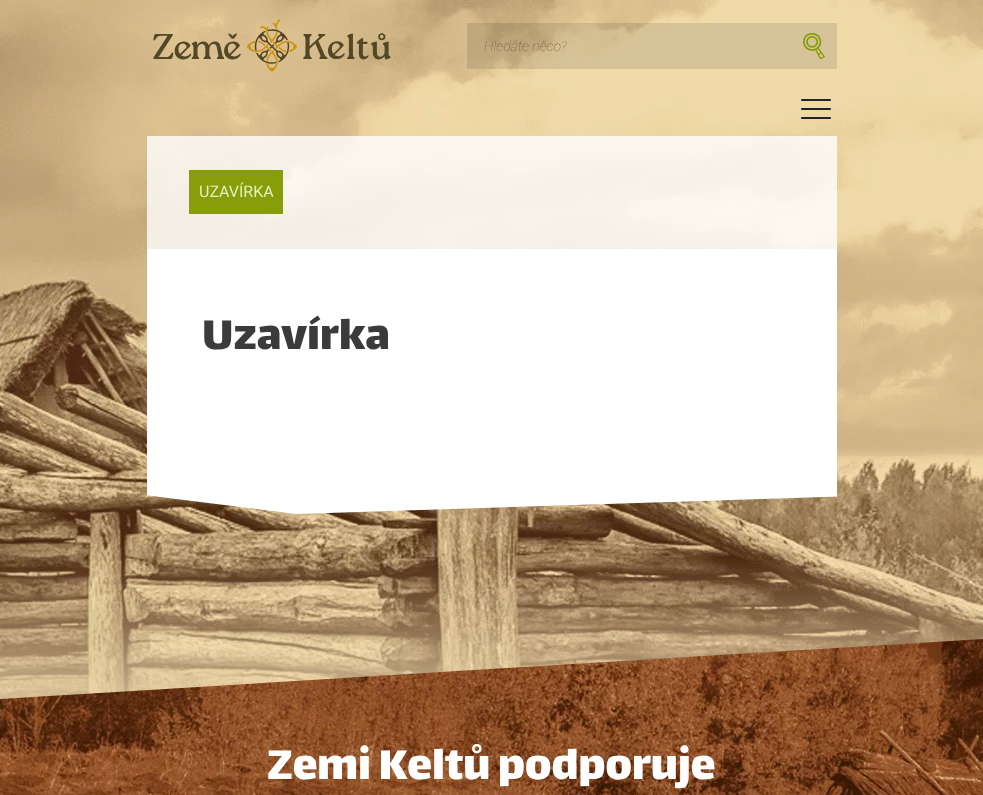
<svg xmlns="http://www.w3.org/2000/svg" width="983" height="795">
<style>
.a{font:italic 100 14px Roboto;fill:#6f5a3e}
.b{font:16px Roboto;fill:#e6eeba}
.c{font:50px Lalezar;fill:#3b3b3a}
.d{font:50px Lalezar;fill:#fff}
</style>
<rect width="100%" height="100%" fill="#fff"/>
<image href="1.png" x="0" y="0" width="983" height="699"/>
<image href="2.png" x="153" y="19" width="238" height="53"/>
<path fill="#0000001a" d="M467 23h370v46H467z"/>
<image href="3.png" x="803" y="33" width="22" height="26"/>
<path fill="#212529" d="M802 99h14v2h-14c-.5 0-1-.5-1-1c0-.5 .5-1 1-1z"/>
<path fill="#212529" d="M816 99h14c.5 0 1 .5 1 1c0 .5-.5 1-1 1h-14z"/>
<path fill="#212529" d="M802 108h14v2h-14c-.5 0-1-.5-1-1c0-.5 .5-1 1-1z"/>
<path fill="#212529" d="M816 108h14c.5 0 1 .5 1 1c0 .5-.5 1-1 1h-14z"/>
<path fill="#212529" d="M802 117h14v2h-14c-.5 0-1-.5-1-1c0-.5 .5-1 1-1z"/>
<path fill="#212529" d="M816 117h14c.5 0 1 .5 1 1c0 .5-.5 1-1 1h-14z"/>
<path fill="#ffffffcc" d="M147 136h690v113H147z"/>
<path fill="#879d0a" d="M189 170h94v44H189z"/>
<path fill="#fff" d="M147 249h690v160H147z"/>
<image href="4.png" x="147" y="409" width="690" height="105"/>
<image href="5.png" x="0" y="639" width="983" height="156"/>
<text class="a" x="484" y="51">Hledáte něco?</text>
<text class="b" x="199" y="197">UZAVÍRKA</text>
<text class="c" x="202" y="349">Uzavírka</text>
<text class="d" x="267" y="779">Zemi Keltů podporuje</text>
</svg>
